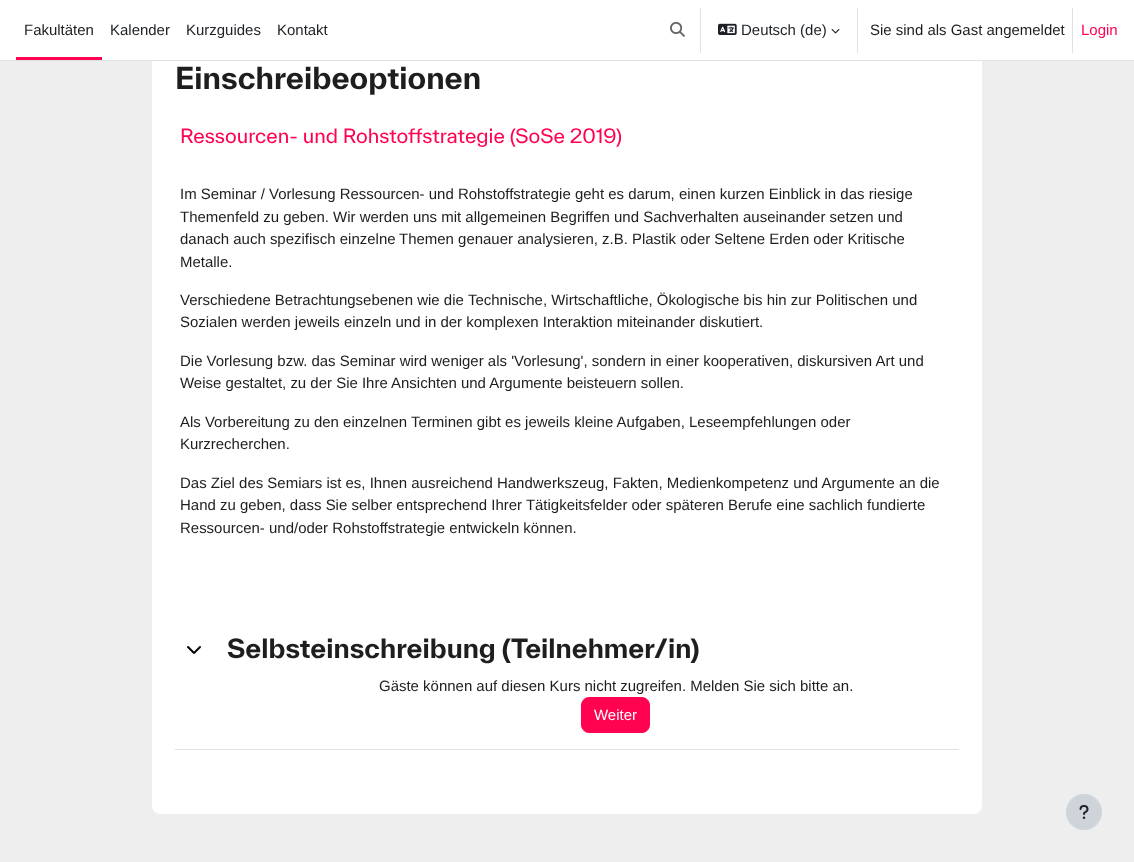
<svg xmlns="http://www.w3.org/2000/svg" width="1134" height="862">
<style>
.a{font:14.97px Liberation Sans;fill:#1e1e1e}
.b{font:14.97px Liberation Sans;fill:#1d2125}
.c{font:14.97px Liberation Sans;fill:#ff0350}
.d{font:bold 29.25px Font;fill:#1e1e1e}
.e{font:19.2px Font;fill:#ff0350}
.f{font:bold 25.7px Font;fill:#1e1e1e}
.g{font:14.97px Liberation Sans;fill:#fff}
</style>
<rect width="100%" height="100%" fill="#eee"/>
<rect fill="#fff" x="152" y="-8" width="830" height="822" rx="8"/>
<path fill="#fff" d="M0 0h1134v60H0z"/>
<path fill="#dee2e6" d="M0 60h1134v1H0z"/>
<path fill="#ff0350" d="M16 57h86v3H16z"/>
<image href="1.png" x="670" y="21" width="15" height="16"/>
<path fill="#dee2e6" d="M700 8h1v45H700z"/>
<image href="2.png" x="718" y="23" width="19" height="12"/>
<image href="3.png" x="831" y="29" width="9" height="5"/>
<path fill="#dee2e6" d="M857 8h1v45H857z"/>
<path fill="#dee2e6" d="M1072 8h1v45H1072z"/>
<path fill="#dee2e6" d="M175 749h784v1H175z"/>
<image href="4.png" x="187" y="646" width="14" height="8"/>
<rect fill="#ff0350" stroke="#ff0350" x="581.5" y="697.5" width="68" height="35" rx="7.5"/>
<circle fill="#ced4da" cx="1084" cy="812" r="18"/>
<image href="5.png" x="1079" y="805" width="10" height="14"/>
<text class="a" x="24" y="35">Fakultäten</text>
<text class="b" x="110" y="35">Kalender</text>
<text class="b" x="186" y="35">Kurzguides</text>
<text class="b" x="277" y="35">Kontakt</text>
<text class="b" x="741" y="35">Deutsch (de)</text>
<text class="a" x="870" y="35">Sie sind als Gast angemeldet</text>
<text class="c" x="1081" y="35">Login</text>
<text class="d" x="175" y="89">Einschreibeoptionen</text>
<text class="e" x="180" y="143">Ressourcen- und Rohstoffstrategie (SoSe 2019)</text>
<text class="a" x="180" y="199">Im Seminar / Vorlesung Ressourcen- und Rohstoffstrategie geht es darum, einen kurzen Einblick in das riesige</text>
<text class="a" x="180" y="222">Themenfeld zu geben. Wir werden uns mit allgemeinen Begriffen und Sachverhalten auseinander setzen und</text>
<text class="a" x="180" y="244">danach auch spezifisch einzelne</text>
<text class="a" x="399" y="244">Themen genauer analysieren, z.B. Plastik oder Seltene Erden oder Kritische</text>
<text class="a" x="180" y="267">Metalle.</text>
<text class="a" x="180" y="305">Verschiedene Betrachtungsebenen wie die</text>
<text class="a" x="468" y="305">Technische, Wirtschaftliche, Ökologische bis hin zur Politischen und</text>
<text class="a" x="180" y="327">Sozialen werden jeweils einzeln und in der komplexen Interaktion miteinander diskutiert.</text>
<text class="a" x="180" y="366">Die Vorlesung bzw. das Seminar wird weniger als 'Vorlesung', sondern in einer kooperativen, diskursiven Art und</text>
<text class="a" x="180" y="388">Weise gestaltet, zu der Sie Ihre Ansichten und Argumente beisteuern sollen.</text>
<text class="a" x="180" y="427">Als Vorbereitung zu den einzelnen Terminen gibt es jeweils kleine Aufgaben, Leseempfehlungen oder</text>
<text class="a" x="180" y="449">Kurzrecherchen.</text>
<text class="a" x="180" y="488">Das Ziel des Semiars ist es, Ihnen ausreichend Handwerkszeug, Fakten, Medienkompetenz und Argumente an die</text>
<text class="a" x="180" y="510">Hand zu geben, dass Sie selber entsprechend Ihrer Tätigkeitsfelder oder späteren Berufe eine sachlich fundierte</text>
<text class="a" x="180" y="533">Ressourcen- und/oder Rohstoffstrategie entwickeln können.</text>
<text class="f" x="227" y="658">Selbsteinschreibung (Teilnehmer/in)</text>
<text class="a" x="379" y="691">Gäste können auf diesen Kurs nicht zugreifen. Melden Sie sich bitte an.</text>
<text class="g" x="594" y="720">Weiter</text>
</svg>
